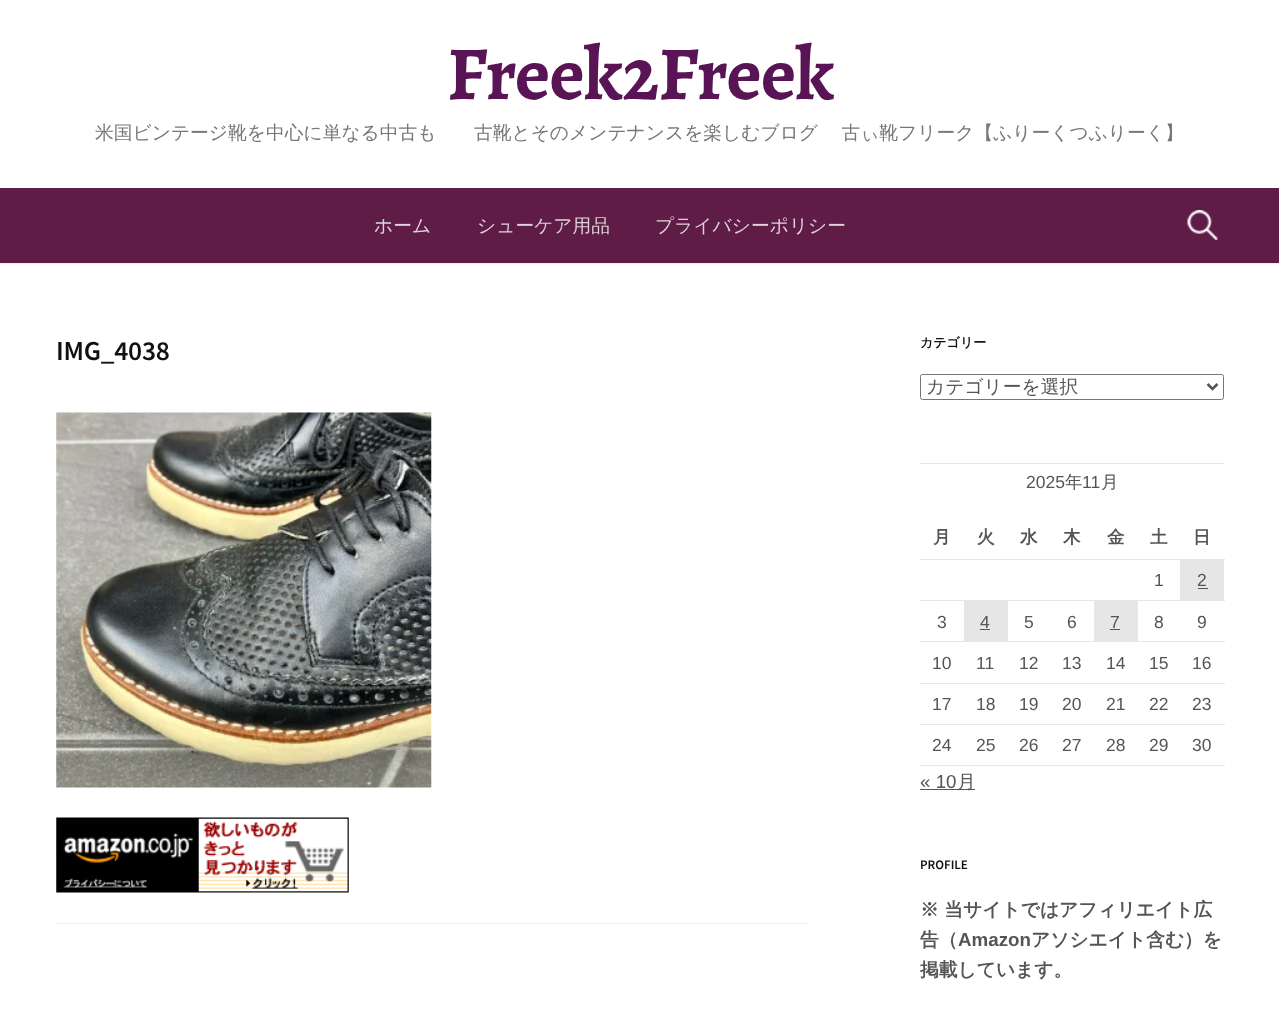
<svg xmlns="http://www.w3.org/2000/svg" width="1279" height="1009">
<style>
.a{font:bold 76.25px Alegreya;letter-spacing:-0.75px;fill:#591455}
.b{font:500 18.75px WenQuanYi Zen Hei;fill:#777}
.c{font:500 18.75px WenQuanYi Zen Hei;fill:#dfd2da}
.d{font:600 27.5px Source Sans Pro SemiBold;letter-spacing:-0.25px;fill:#111}
.e{font:bold 13px WenQuanYi Zen Hei;fill:#111}
.f{font:500 18.75px WenQuanYi Zen Hei;fill:#555}
.g{font:17.5px Liberation Sans;fill:#555}
.h{font:500 17.5px WenQuanYi Zen Hei;fill:#555}
.i{font:bold 17.5px WenQuanYi Zen Hei;fill:#555}
.j{font:18.75px Liberation Sans;fill:#555}
.k{font:600 13px Source Sans Pro SemiBold;fill:#111}
.l{font:bold 18.75px WenQuanYi Zen Hei;fill:#555}
.m{font:bold 18.75px Liberation Sans;fill:#555}
</style>
<rect width="100%" height="100%" fill="#fff"/>
<path fill="#eee" d="M0 263h1279v1H0z"/>
<path fill="#5e1c46" d="M0 188h1279v75H0z"/>
<image href="1.png" x="1187" y="210" width="31" height="30"/>
<path fill="#eee" d="M56 923h752v1H56z"/>
<image href="2.png" x="56" y="412" width="376" height="376"/>
<image href="3.png" x="56" y="817" width="293" height="76"/>
<rect fill="none" stroke="#767676" x="920.5" y="374.5" width="303" height="25" rx="2"/>
<path fill="none" stroke="#555" stroke-width="2.5" d="M1207.5 384l5 5l5-5"/>
<path fill="#e6e6e6" d="M920 463h304v1H920z"/>
<path fill="#e6e6e6" d="M920 559h305v1H920z"/>
<path fill="#e6e6e6" d="M920 600h305v1H920z"/>
<path fill="#e6e6e6" d="M1180 560h44v40H1180z"/>
<path fill="#555" d="M1198 588h10v1H1198z"/>
<path fill="#e6e6e6" d="M964 601h44v40H964z"/>
<path fill="#555" d="M980 629h10v1H980z"/>
<path fill="#e6e6e6" d="M1094 601h44v40H1094z"/>
<path fill="#555" d="M1110 629h10v1H1110z"/>
<path fill="#e6e6e6" d="M920 641h305v1H920z"/>
<path fill="#e6e6e6" d="M920 683h305v1H920z"/>
<path fill="#e6e6e6" d="M920 724h305v1H920z"/>
<path fill="#e6e6e6" d="M920 765h305v1H920z"/>
<path fill="#555" d="M920 789h55v1H920z"/>
<text class="a" x="447" y="99">Freek2Freek</text>
<text class="b" x="95" y="139" word-spacing="-1">米国ビンテージ靴を中心に単なる中古も　　古靴とそのメンテナンスを楽しむブログ 　古ぃ靴フリーク【ふりーくつふりーく】</text>
<text class="c" x="374" y="232">ホーム</text>
<text class="c" x="477" y="232">シューケア用品</text>
<text class="c" x="655" y="232">プライバシーポリシー</text>
<text class="d" x="56" y="360">IMG_4038</text>
<text class="e" x="920" y="347">カテゴリー</text>
<text class="f" x="926" y="393">カテゴリーを選択</text>
<text class="g" x="1026" y="488">2025</text>
<text class="h" x="1065" y="488">年</text>
<text class="g" x="1082" y="488">11</text>
<text class="h" x="1101" y="488">月</text>
<text class="i" x="933" y="543">月</text>
<text class="i" x="977" y="543">火</text>
<text class="i" x="1020" y="543">水</text>
<text class="i" x="1063" y="543">木</text>
<text class="i" x="1107" y="543">金</text>
<text class="i" x="1150" y="543">土</text>
<text class="i" x="1193" y="543">日</text>
<text class="g" x="1154" y="586">1</text>
<text class="g" x="1197" y="586">2</text>
<text class="g" x="937" y="628">3</text>
<text class="g" x="980" y="628">4</text>
<text class="g" x="1024" y="628">5</text>
<text class="g" x="1067" y="628">6</text>
<text class="g" x="1110" y="628">7</text>
<text class="g" x="1154" y="628">8</text>
<text class="g" x="1197" y="628">9</text>
<text class="g" x="932" y="669">10</text>
<text class="g" x="976" y="669">11</text>
<text class="g" x="1019" y="669">12</text>
<text class="g" x="1062" y="669">13</text>
<text class="g" x="1106" y="669">14</text>
<text class="g" x="1149" y="669">15</text>
<text class="g" x="1192" y="669">16</text>
<text class="g" x="932" y="710">17</text>
<text class="g" x="976" y="710">18</text>
<text class="g" x="1019" y="710">19</text>
<text class="g" x="1062" y="710">20</text>
<text class="g" x="1106" y="710">21</text>
<text class="g" x="1149" y="710">22</text>
<text class="g" x="1192" y="710">23</text>
<text class="g" x="932" y="751">24</text>
<text class="g" x="976" y="751">25</text>
<text class="g" x="1019" y="751">26</text>
<text class="g" x="1062" y="751">27</text>
<text class="g" x="1106" y="751">28</text>
<text class="g" x="1149" y="751">29</text>
<text class="g" x="1192" y="751">30</text>
<text class="j" x="920" y="788">« 10</text>
<text class="f" x="957" y="788">月</text>
<text class="k" x="920" y="869">PROFILE</text>
<text class="l" x="920" y="916">※ 当サイトではアフィリエイト広</text>
<text class="l" x="920" y="946">告（</text>
<text class="m" x="958" y="946">Amazon</text>
<text class="l" x="1031" y="946">アソシエイト含む）を</text>
<text class="l" x="920" y="976">掲載しています。</text>
</svg>
